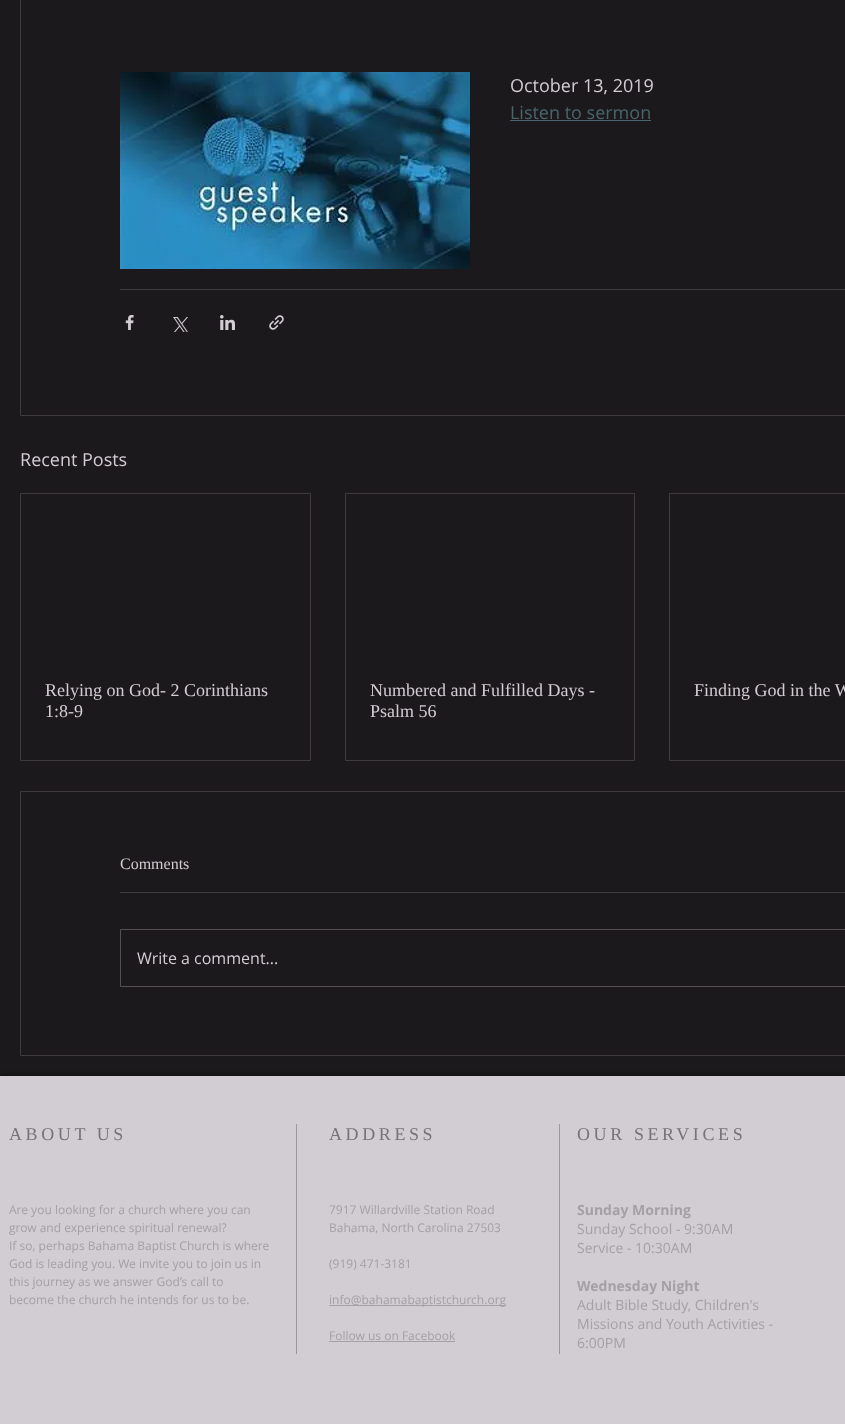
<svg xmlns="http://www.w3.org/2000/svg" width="845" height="1424">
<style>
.a{font:18px Open Sans;fill:#d2cdd2}
.b{font:18px Open Sans;fill:#48656d}
.c{font:18px Liberation Serif;fill:#d2cdd2}
.d{font:16px Liberation Serif;fill:#d2cdd2}
.e{font:16px Open Sans;fill:#d2cdd2}
.f{font:18px Liberation Serif;letter-spacing:3.6px;fill:#777377}
.g{font:12px Open Sans;fill:#a4a0a4}
.h{font:bold 14px Open Sans;fill:#a4a0a4}
.i{font:14px Open Sans;fill:#a4a0a4}
</style>
<rect width="100%" height="100%" fill="#1c191c"/>
<path fill="none" stroke="#3e3a3e" d="M20.5 -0.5h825v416H20.5z"/>
<image href="1.png" x="120" y="72" width="350" height="197"/>
<path fill="#48656d" d="M510 120h141v1H510z"/>
<path fill="#403d40" d="M120 289h725v1H120z"/>
<image href="2.png" x="125" y="315" width="9" height="15"/>
<image href="3.png" x="173" y="317" width="15" height="15"/>
<image href="4.png" x="220" y="315" width="15" height="15"/>
<image href="5.png" x="269" y="315" width="15" height="15"/>
<path fill="none" stroke="#3e3a3e" d="M20.5 493.5h290v267H20.5z"/>
<path fill="none" stroke="#3e3a3e" d="M345.5 493.5h289v267H345.5z"/>
<path fill="none" stroke="#3e3a3e" d="M669.5 493.5h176v267H669.5z"/>
<path fill="none" stroke="#3e3a3e" d="M20.5 791.5h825v264H20.5z"/>
<path fill="#403d40" d="M120 892h725v1H120z"/>
<path fill="none" stroke="#534f53" d="M120.5 929.5h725v57H120.5z"/>
<path fill="#000000b3" filter="blur(2.5px)" d="M0 1076h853v348H0z"/>
<path fill="#d2cdd2" d="M0 1076h845v348H0z"/>
<path fill="#999" d="M296 1124h1v230H296z"/>
<path fill="#999" d="M559 1124h1v230H559z"/>
<path fill="#a4a0a4" d="M329 1305h177v1H329z"/>
<path fill="#a4a0a4" d="M329 1341h126v1H329z"/>
<text class="a" x="510" y="92">October 13, 2019</text>
<text class="b" x="510" y="119">Listen to sermon</text>
<text class="a" x="20" y="466">Recent Posts</text>
<text class="c" x="45" y="696">Relying on God- 2 Corinthians</text>
<text class="c" x="45" y="717">1:8-9</text>
<text class="c" x="370" y="696">Numbered and Fulfilled Days -</text>
<text class="c" x="370" y="717">Psalm 56</text>
<text class="c" x="694" y="696">Finding God in the W</text>
<text class="d" x="120" y="869">Comments</text>
<text class="e" x="137" y="964">Write a comment...</text>
<text class="f" x="9" y="1140">ABOUT US</text>
<text class="f" x="329" y="1140">ADDRESS</text>
<text class="f" x="577" y="1140">OUR SERVICES</text>
<text class="g" x="9" y="1214">Are you looking for a church where you can</text>
<text class="g" x="9" y="1232">grow and experience spiritual renewal?</text>
<text class="g" x="9" y="1250">If so, perhaps Bahama Baptist Church is where</text>
<text class="g" x="9" y="1268">God is leading you. We invite you to join us in</text>
<text class="g" x="9" y="1286">this journey as we answer God’s call to</text>
<text class="g" x="9" y="1304">become the church he intends for us to be.</text>
<text class="g" x="329" y="1214">7917 Willardville Station Road</text>
<text class="g" x="329" y="1232">Bahama, North Carolina 27503</text>
<text class="g" x="329" y="1268">(919) 471-3181</text>
<text class="g" x="329" y="1304">info@bahamabaptistchurch.org</text>
<text class="g" x="329" y="1340">Follow us on Facebook</text>
<text class="h" x="577" y="1215">Sunday Morning</text>
<text class="i" x="577" y="1234">Sunday School - 9:30AM</text>
<text class="i" x="577" y="1253">Service - 10:30AM</text>
<text class="h" x="577" y="1291">Wednesday Night</text>
<text class="i" x="577" y="1310">Adult Bible Study, Children's</text>
<text class="i" x="577" y="1329">Missions and Youth Activities -</text>
<text class="i" x="577" y="1348">6:00PM</text>
</svg>
